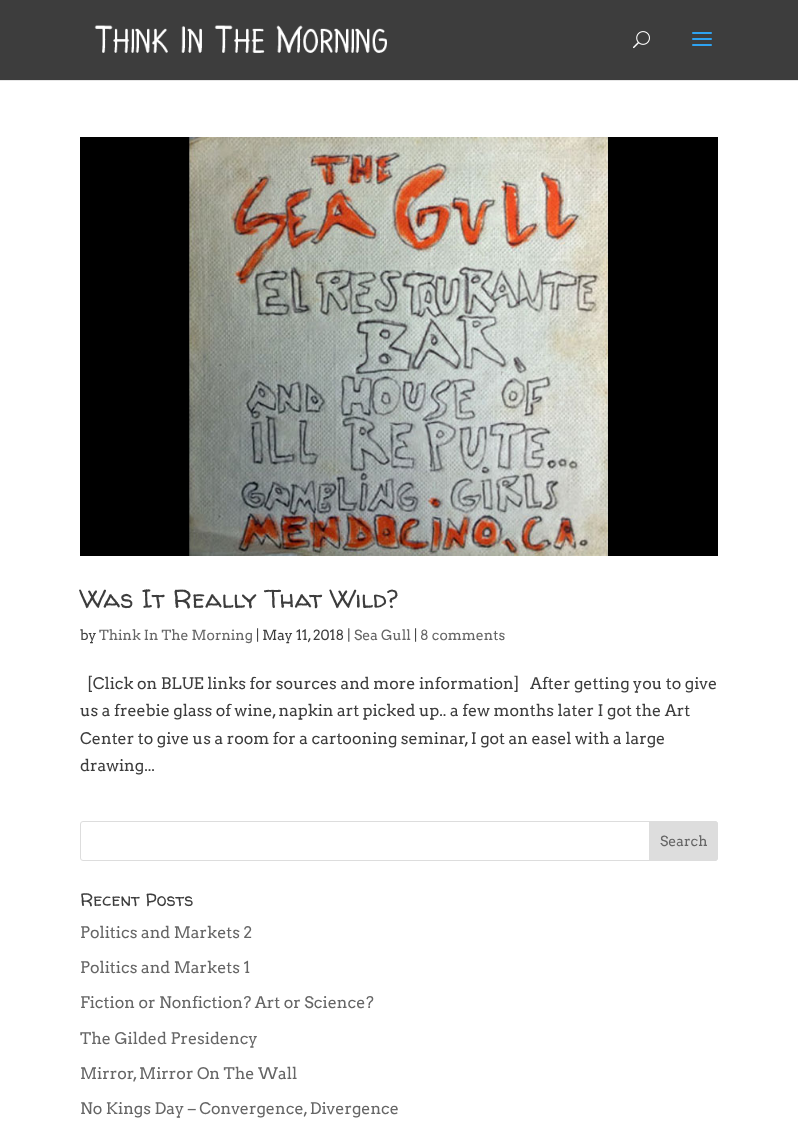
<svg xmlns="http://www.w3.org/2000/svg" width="798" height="1124">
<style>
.a{font:26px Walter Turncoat;fill:#3d3d3d}
.b{font:14px Arvo;fill:#3d3d3d}
.c{font:14px Arvo;fill:#666}
.d{font:16px Arvo;fill:#3d3d3d}
.e{font:18px Walter Turncoat;fill:#3d3d3d}
.f{font:16px Arvo;fill:#666}
</style>
<rect width="100%" height="100%" fill="#fff"/>
<path fill="#e6e6e6" d="M0 80h798v1H0z"/>
<path fill="#3d3d3d" d="M0 0h798v80H0z"/>
<image href="1.png" x="94" y="25" width="293" height="28"/>
<image href="2.png" x="633" y="31" width="17" height="18"/>
<image href="3.png" x="692" y="32" width="20" height="14"/>
<image href="4.png" x="80" y="137" width="638" height="419"/>
<rect fill="none" stroke="#ddd" x="80.5" y="821.5" width="637" height="39" rx="2.5"/>
<path fill="#ddd" stroke="#ddd" d="M649.5 821.5h65.5c1.5 0 2.5 1 2.5 2.5v34c0 1.5-1 2.5-2.5 2.5h-65.5z"/>
<text class="a" x="80" y="608">Was It Really That Wild?</text>
<text class="b" x="80" y="640">by</text>
<text class="c" x="99" y="640">Think In The Morning</text>
<text class="b" x="256" y="640">| May 11, 2018 |</text>
<text class="c" x="354" y="640">Sea Gull</text>
<text class="b" x="414" y="640">|</text>
<text class="c" x="420" y="640">8 comments</text>
<text class="d" xml:space="preserve" x="87" y="689">[Click on BLUE links for sources and more information]   After getting you to give</text>
<text class="d" x="80" y="716">us a freebie glass of wine, napkin art picked up.. a few months later I got the Art</text>
<text class="d" x="80" y="744">Center to give us a room for a cartooning seminar, I got an easel with a large</text>
<text class="d" x="80" y="771">drawing...</text>
<text class="c" x="660" y="846">Search</text>
<text class="e" x="80" y="906">Recent Posts</text>
<text class="f" x="80" y="938">Politics and Markets 2</text>
<text class="f" x="80" y="973">Politics and Markets 1</text>
<text class="f" x="80" y="1008">Fiction or Nonfiction? Art or Science?</text>
<text class="f" x="80" y="1044">The Gilded Presidency</text>
<text class="f" x="80" y="1079">Mirror, Mirror On The Wall</text>
<text class="f" x="80" y="1114">No Kings Day – Convergence, Divergence</text>
</svg>
